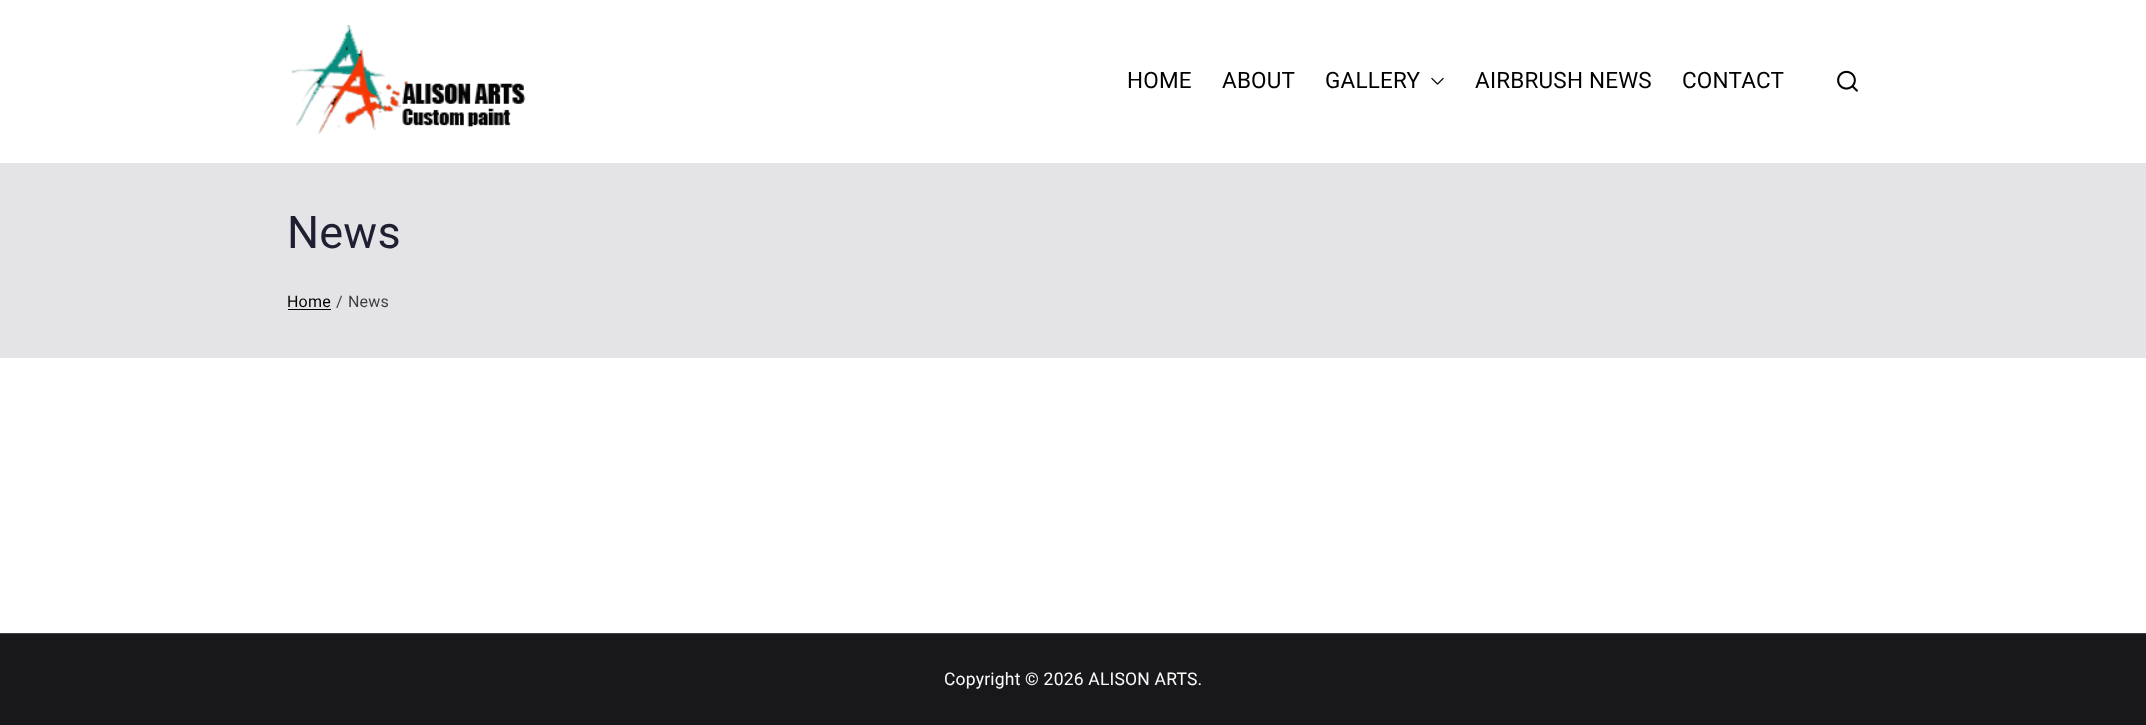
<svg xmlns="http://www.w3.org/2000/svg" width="2146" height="725">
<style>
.a{font:22.5px Roboto;letter-spacing:0.2px;fill:#000}
.b{font:45px Roboto;letter-spacing:0.2px;fill:#1f1f32}
.c{font:16px Roboto;letter-spacing:0.2px;fill:#000}
.d{font:16px Roboto;letter-spacing:0.2px;fill:#3f3f46}
.e{font:17.5px Roboto;letter-spacing:0.2px;fill:#fafafa}
</style>
<rect width="100%" height="100%" fill="#fff"/>
<image href="1.png" x="291" y="25" width="235" height="109"/>
<image href="2.png" x="1431" y="77" width="13" height="8"/>
<image href="3.png" x="1837" y="70" width="21" height="22"/>
<path fill="#e4e4e7" d="M0 163h2146v195H0z"/>
<path fill="#000" d="M288 309h43v1H288z"/>
<path fill="#18181b" d="M0 634h2146v91H0z"/>
<path fill="#3f3f46" d="M0 633h2146v1H0z"/>
<text class="a" x="1127" y="88">HOME</text>
<text class="a" x="1222" y="88">ABOUT</text>
<text class="a" x="1325" y="88">GALLERY</text>
<text class="a" x="1475" y="88">AIRBRUSH NEWS</text>
<text class="a" x="1682" y="88">CONTACT</text>
<text class="b" x="287" y="248">News</text>
<text class="c" x="287" y="307">Home</text>
<text class="d" x="336" y="307">/</text>
<text class="d" x="348" y="307">News</text>
<text class="e" x="944" y="685">Copyright © 2026 ALISON ARTS.</text>
</svg>
